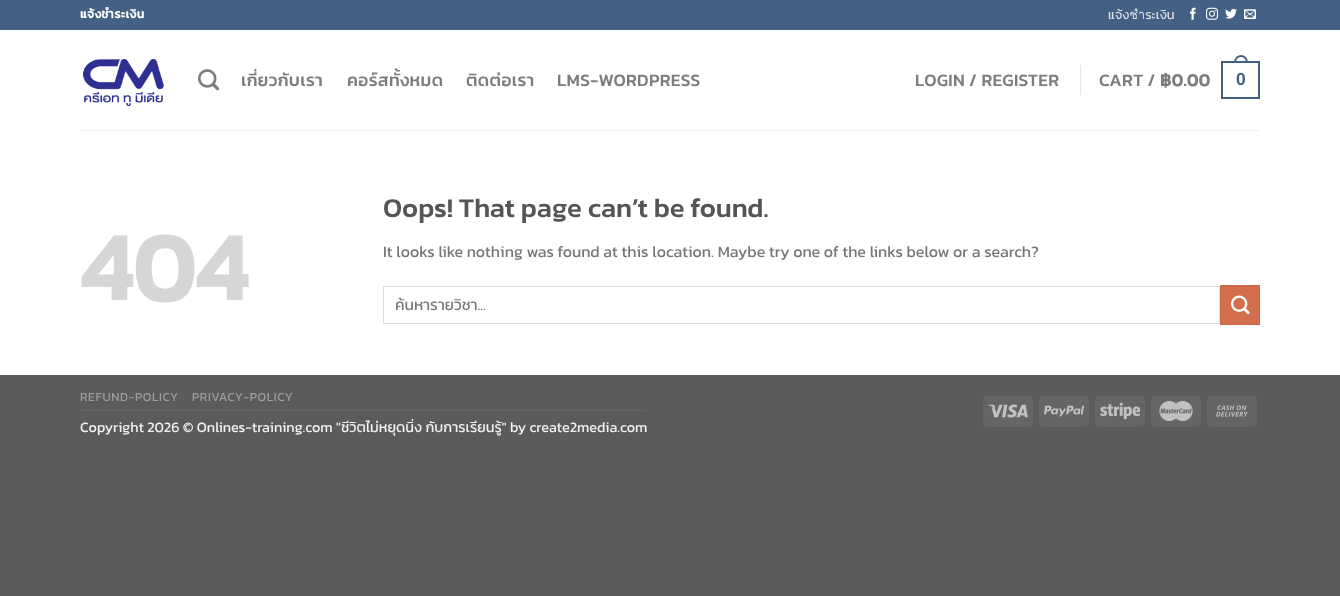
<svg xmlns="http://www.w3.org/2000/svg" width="1340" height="596">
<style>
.a{font:bold 12px Kanit;letter-spacing:0.6px;fill:#fff}
.b{font:12.75px Kanit;fill:#dadfe6}
.c{font:500 17.5px Kanit;letter-spacing:0.3px;fill:#7d7d7d}
.d{font:bold 17.5px Kanit;letter-spacing:0.3px;fill:#7d7d7d}
.e{font:bold 17.5px Liberation Sans;letter-spacing:0.3px;fill:#446084}
.f{font:bold 96px Kanit;fill:#d6d6d6}
.g{font:500 27.25px Kanit;fill:#555}
.h{font:16px Kanit;fill:#777}
.i{font:15.5px Kanit;fill:#777}
.j{font:12.25px Kanit;letter-spacing:0.6px;fill:#9d9d9d}
.k{font:14.4px Kanit;fill:#f1f1f1}
</style>
<defs>
<clipPath id="clip1"><path d="M395 293h809v23H395z"/></clipPath>
</defs>
<rect width="100%" height="100%" fill="#5b5b5b"/>
<path fill="#fff" d="M0 30h1340v345H0z"/>
<path fill="#446084" d="M0 0h1340v30H0z"/>
<image href="1.png" x="1190" y="7" width="6" height="13"/>
<image href="2.png" x="1206" y="7" width="12" height="13"/>
<image href="3.png" x="1225" y="8" width="12" height="11"/>
<image href="4.png" x="1244" y="9" width="12" height="10"/>
<image href="5.png" x="83" y="59" width="81" height="47"/>
<image href="6.png" x="198" y="69" width="22" height="22"/>
<path fill="#e6e6e6" d="M1080 65h1v30H1080z"/>
<path fill="none" stroke="#446084" stroke-width="2" d="M1222 62h37v36H1222z"/>
<path fill="#446084" fill-rule="evenodd" d="M1241 55c4.5 0 7 4 7 8h-14c0-4 2.5-8 7-8zm0 2c3.5 0 5 3 5 6h-10c0-3 1.5-6 5-6z"/>
<path fill="#f1f1f1" d="M80 130h1180v1H80z"/>
<path fill="none" stroke="#ddd" d="M383.5 286.5h836v37H383.5z"/>
<path fill="#d26e4b" stroke="#c86947" d="M1220.5 285.5h39v39H1220.5z"/>
<image href="7.png" x="1231" y="295" width="19" height="20"/>
<path fill="#656565" d="M80 410h567v1H80z"/>
<rect fill="#656565" x="983" y="396" width="50" height="31" rx="5"/>
<image href="8.png" x="988" y="404" width="40" height="14"/>
<rect fill="#656565" x="1039" y="396" width="50" height="31" rx="5"/>
<image href="9.png" x="1044" y="405" width="40" height="12"/>
<rect fill="#656565" x="1095" y="396" width="50" height="31" rx="5"/>
<image href="10.png" x="1100" y="402" width="40" height="18"/>
<rect fill="#656565" x="1151" y="396" width="50" height="31" rx="5"/>
<image href="11.png" x="1159" y="401" width="34" height="20"/>
<rect fill="#656565" x="1207" y="396" width="50" height="31" rx="5"/>
<image href="12.png" x="1216" y="405" width="32" height="12"/>
<text class="a" x="80" y="18">แจ้งชำระเงิน</text>
<text class="b" x="1108" y="19">แจ้งชำระเงิน</text>
<text class="c" x="241" y="86">เกี่ยวกับเรา</text>
<text class="c" x="347" y="86">คอร์สทั้งหมด</text>
<text class="c" x="466" y="86">ติดต่อเรา</text>
<text class="c" x="557" y="86">LMS-WORDPRESS</text>
<text class="c" x="915" y="86">LOGIN / REGISTER</text>
<text class="c" x="1099" y="86">CART /</text>
<text class="d" x="1160" y="86">฿0.00</text>
<text class="e" x="1236" y="85">0</text>
<text class="f" x="80" y="300">404</text>
<text class="g" x="383" y="217">Oops! That page can’t be found.</text>
<text class="h" x="383" y="257">It looks like nothing was found at this location. Maybe try one of the links below or a search?</text>
<g clip-path="url(#clip1)">
<text class="i" x="395" y="310">ค้นหารายวิชา...</text>
</g>
<text class="j" x="80" y="401">REFUND-POLICY</text>
<text class="j" x="192" y="401">PRIVACY-POLICY</text>
<text class="k" x="80" y="432">Copyright 2026 © Onlines-training.com "ชีวิตไม่หยุดนิ่ง กับการเรียนรู้" by create2media.com</text>
</svg>
